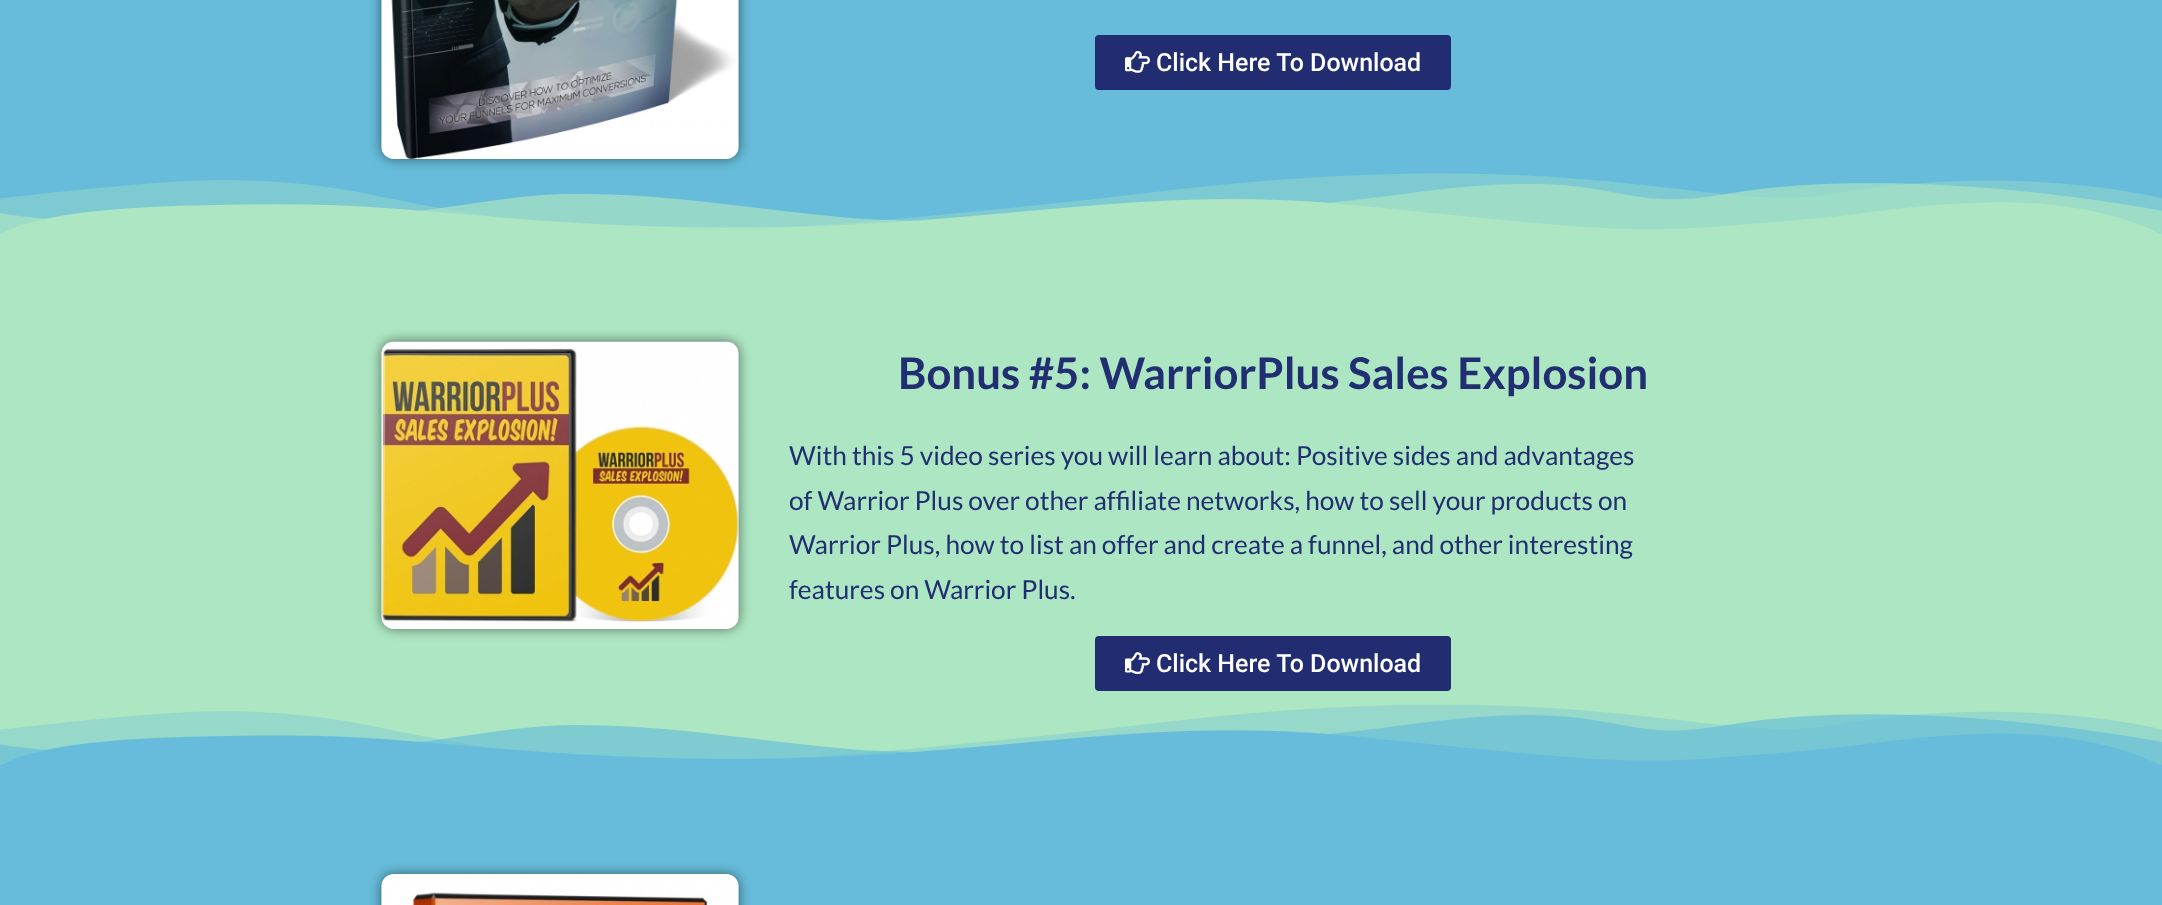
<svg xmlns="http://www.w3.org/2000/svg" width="2162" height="905">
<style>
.a{font:500 25px Roboto;fill:#fff}
.b{font:bold 43.75px Lato;fill:#212e71}
.c{font:26.25px Lato;fill:#212e71}
</style>
<rect width="100%" height="100%" fill="#66bcda"/>
<image href="3.png" x="0" y="173" width="2162" height="61"/>
<rect fill="#00000080" filter="blur(6px)" x="381" y="-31" width="358" height="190" rx="13"/>
<image href="1.png" x="381" y="0" width="358" height="159"/>
<rect fill="#222d71" x="1095" y="35" width="356" height="55" rx="4"/>
<image href="2.png" x="1125" y="50" width="25" height="23"/>
<path fill="#ade6c2" d="M0 234h2162v532H0z"/>
<rect fill="#00000080" filter="blur(6px)" x="381" y="341" width="358" height="288" rx="13"/>
<image href="4.png" x="381" y="341" width="358" height="288"/>
<rect fill="#222d71" x="1095" y="636" width="356" height="55" rx="4"/>
<image href="5.png" x="1125" y="652" width="25" height="23"/>
<image href="6.png" x="0" y="705" width="2162" height="61"/>
<image href="7.png" x="0" y="765" width="2162" height="1"/>
<rect fill="#00000080" filter="blur(6px)" x="381" y="874" width="358" height="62" rx="13"/>
<image href="8.png" x="381" y="874" width="358" height="31"/>
<text class="a" x="1156" y="71">Click Here To Download</text>
<text class="b" x="898" y="389">Bonus #5: WarriorPlus Sales Explosion</text>
<text class="c" x="789" y="465">With this 5 video series you will learn about: Positive sides and advantages</text>
<text class="c" x="789" y="510">of Warrior Plus over other affiliate networks, how to sell your products on</text>
<text class="c" x="789" y="554">Warrior Plus, how to list an offer and create a funnel, and other interesting</text>
<text class="c" x="789" y="599">features on Warrior Plus.</text>
<text class="a" x="1156" y="672">Click Here To Download</text>
</svg>
